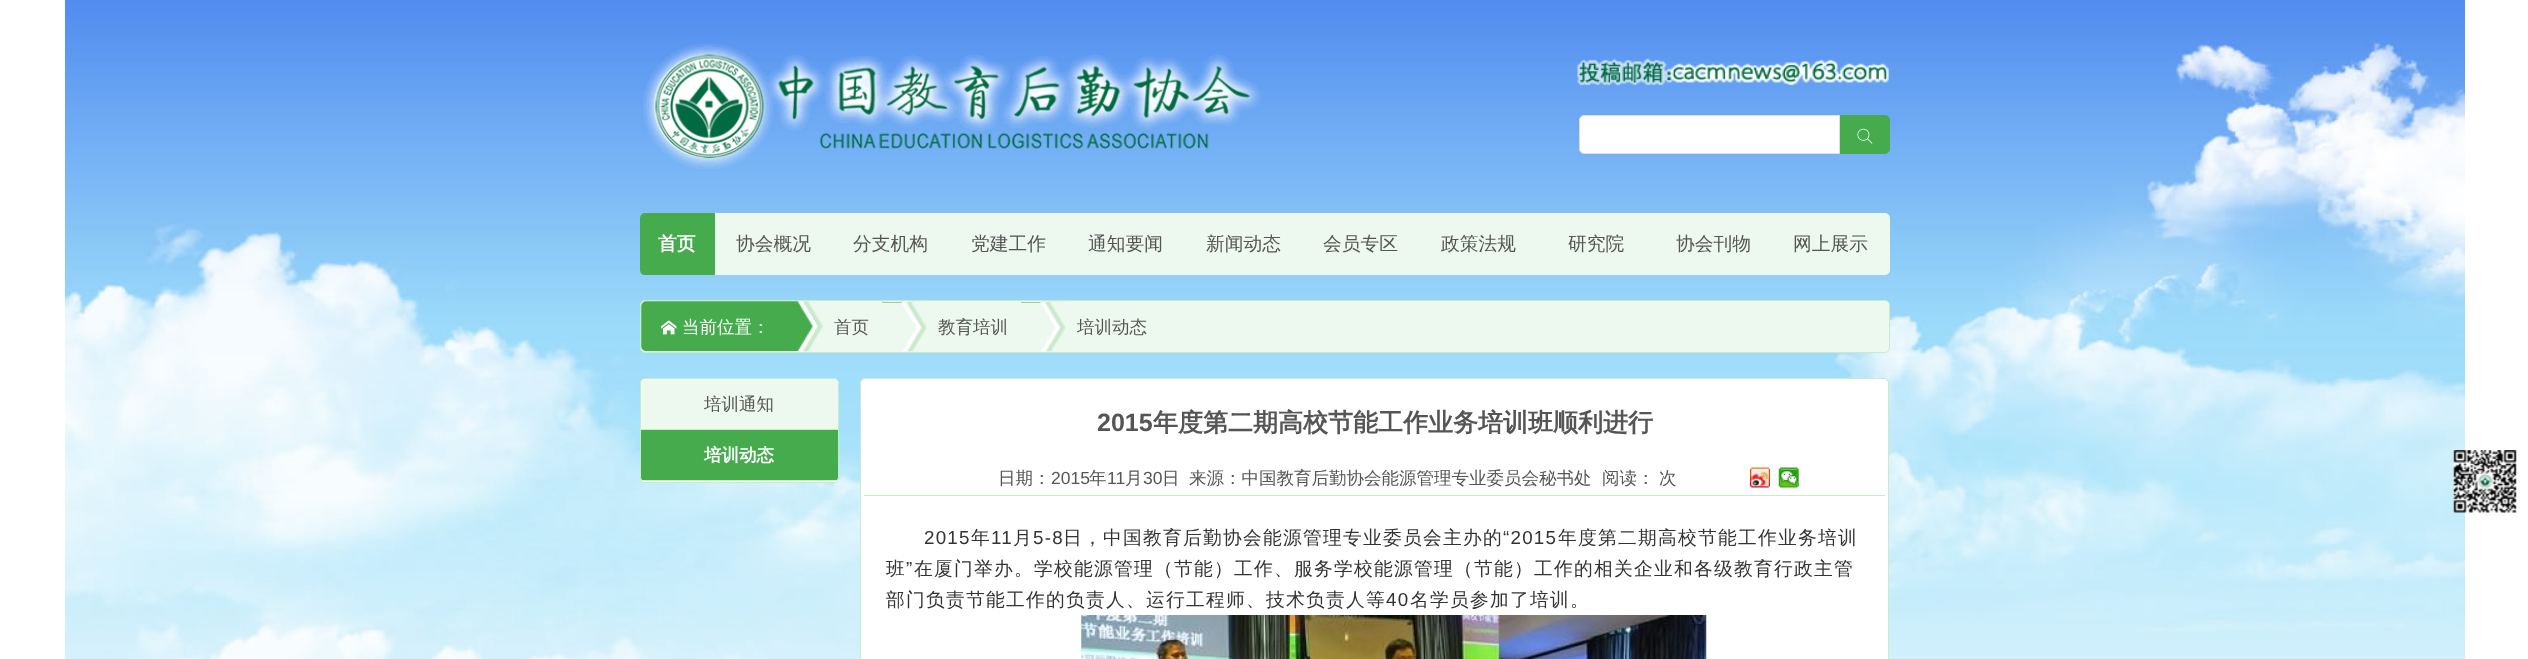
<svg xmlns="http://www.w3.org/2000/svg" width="2528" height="659">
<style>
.a{font:bold 18.75px WenQuanYi Zen Hei;fill:#fff}
.b{font:500 18.75px WenQuanYi Zen Hei;fill:#555}
.c{font:500 17.5px WenQuanYi Zen Hei;fill:#fff}
.d{font:500 17.5px WenQuanYi Zen Hei;fill:#555}
.e{font:bold 17.5px WenQuanYi Zen Hei;fill:#fff}
.f{font:bold 25px Liberation Sans;fill:#555}
.g{font:bold 25px WenQuanYi Zen Hei;fill:#555}
.h{font:17.5px Liberation Sans;fill:#555}
.i{font:18.75px Liberation Sans;letter-spacing:1.25px;fill:#333}
.j{font:500 18.75px WenQuanYi Zen Hei;letter-spacing:1.25px;fill:#333}
</style>
<defs>
<clipPath id="clip1"><rect x="641" y="379" width="197" height="102" rx="4"/></clipPath>
</defs>
<rect width="100%" height="100%" fill="#fff"/>
<image href="1.png" x="65" y="0" width="2400" height="659"/>
<image href="2.png" x="643" y="43" width="618" height="126"/>
<image href="3.png" x="1577" y="58" width="312" height="28"/>
<path fill="#fff" stroke="#ddd" d="M1584 115.5h255.5v38h-255.5c-2.5 0-4.5-2-4.5-4.5v-29c0-2.5 2-4.5 4.5-4.5z"/>
<path fill="#45ab4d" stroke="#45ab4d" d="M1840.5 115.5h44.5c2.5 0 4.5 2 4.5 4.5v29c0 2.5-2 4.5-4.5 4.5h-44.5z"/>
<image href="4.png" x="1857" y="128" width="16" height="16"/>
<rect fill="#edf8ee" x="640" y="213" width="1250" height="62" rx="5"/>
<path fill="#45ab4d" d="M645 213h70v62h-70c-3 0-5-2-5-5v-52c0-3 2-5 5-5z"/>
<rect fill="#edf8ee" stroke="#caeacc" x="640.5" y="300.5" width="1249" height="52" rx="4.5"/>
<image href="5.png" x="641" y="301" width="182" height="51"/>
<image href="6.png" x="661" y="320" width="16" height="15"/>
<image href="7.png" x="882" y="301" width="45" height="51"/>
<path fill="#eee" d="M883 301h43v1H883z"/>
<image href="8.png" x="1021" y="302" width="44" height="50"/>
<path fill="#eee" d="M1021 301h44v1H1021z"/>
<rect fill="#fff" stroke="#caeacc" x="640.5" y="378.5" width="198" height="104" rx="4.5"/>
<path fill="#caeacc" d="M641 429h197v1H641z"/>
<path fill="#edf8ee" d="M645 379h189c2 0 4 2 4 4v46h-197v-46c0-2 2-4 4-4z"/>
<g clip-path="url(#clip1)">
<path fill="#caeacc" d="M641 480h197v1H641z"/>
<path fill="#45ab4d" d="M641 430h197v50H641z"/>
</g>
<rect fill="#fff" stroke="#caeacc" x="860.5" y="378.5" width="1028" height="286" rx="4.5"/>
<image href="9.png" x="1750" y="467" width="20" height="21"/>
<image href="10.png" x="1778" y="467" width="21" height="21"/>
<path fill="#caeacc" d="M864 495h1021v1H864z"/>
<image href="11.png" x="1081" y="615" width="626" height="44"/>
<image href="12.png" x="2453" y="450" width="64" height="63"/>
<text class="a" x="658" y="250">首页</text>
<text class="b" x="736" y="250">协会概况</text>
<text class="b" x="853" y="250">分支机构</text>
<text class="b" x="971" y="250">党建工作</text>
<text class="b" x="1088" y="250">通知要闻</text>
<text class="b" x="1206" y="250">新闻动态</text>
<text class="b" x="1323" y="250">会员专区</text>
<text class="b" x="1441" y="250">政策法规</text>
<text class="b" x="1568" y="250">研究院</text>
<text class="b" x="1676" y="250">协会刊物</text>
<text class="b" x="1793" y="250">网上展示</text>
<text class="c" x="682" y="333">当前位置：</text>
<text class="d" x="834" y="333">首页</text>
<text class="d" x="938" y="333">教育培训</text>
<text class="d" x="1077" y="333">培训动态</text>
<text class="d" x="704" y="410">培训通知</text>
<text class="e" x="704" y="461">培训动态</text>
<text class="f" x="1097" y="431">2015</text>
<text class="g" x="1153" y="431">年度第二期高校节能工作业务培训班顺利进行</text>
<text class="d" x="998" y="484">日期：</text>
<text class="h" x="1051" y="484">2015</text>
<text class="d" x="1089" y="484">年</text>
<text class="h" x="1107" y="484">11</text>
<text class="d" x="1125" y="484">月</text>
<text class="h" x="1143" y="484">30</text>
<text class="d" x="1162" y="484">日</text>
<text class="d" x="1189" y="484">来源：中国教育后勤协会能源管理专业委员会秘书处</text>
<text class="d" x="1602" y="484">阅读：</text>
<text class="d" x="1659" y="484">次</text>
<text class="i" x="924" y="544">2015</text>
<text class="j" x="971" y="544">年</text>
<text class="i" x="991" y="544">11</text>
<text class="j" x="1013" y="544">月</text>
<text class="i" x="1033" y="544">5-8</text>
<text class="j" x="1063" y="544">日，中国教育后勤协会能源管理专业委员会主办的</text>
<text class="i" x="1503" y="544">“2015</text>
<text class="j" x="1558" y="544">年度第二期高校节能工作业务培训</text>
<text class="j" x="886" y="575">班</text>
<text class="i" x="906" y="575">”</text>
<text class="j" x="914" y="575">在厦门举办。学校能源管理（节能）工作、服务学校能源管理（节能）工作的相关企业和各级教育行政主管</text>
<text class="j" x="886" y="606">部门负责节能工作的负责人、运行工程师、技术负责人等</text>
<text class="i" x="1386" y="606">40</text>
<text class="j" x="1410" y="606">名学员参加了培训。</text>
</svg>
